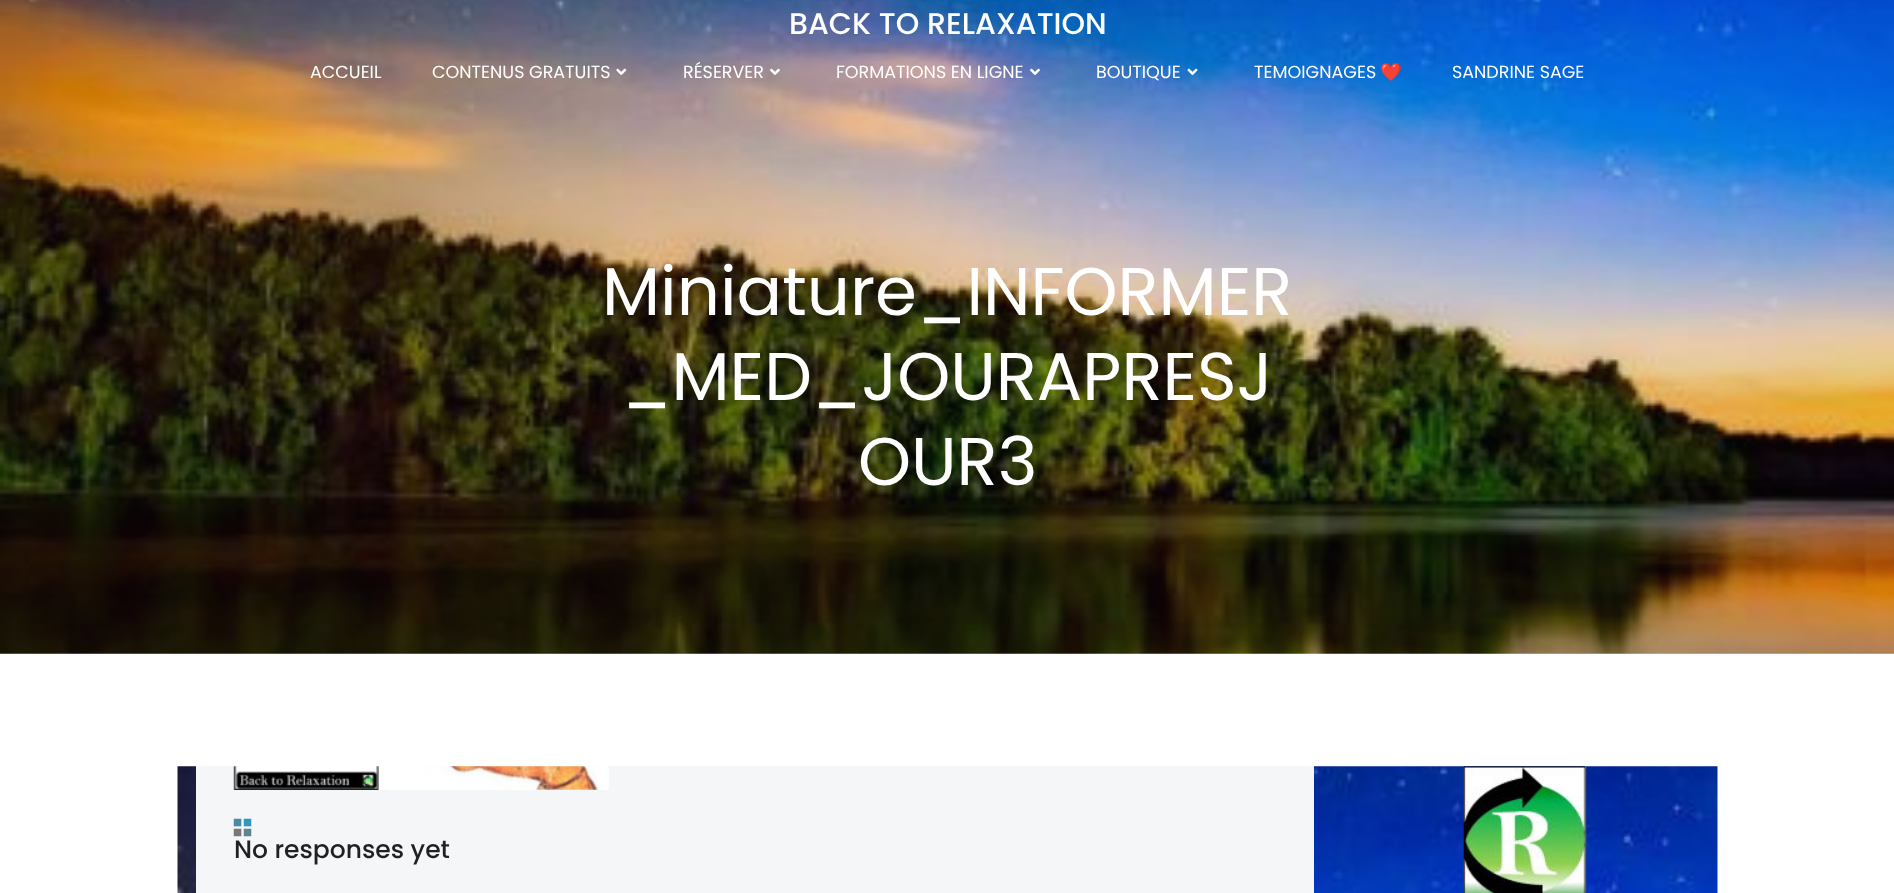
<svg xmlns="http://www.w3.org/2000/svg" width="1894" height="893">
<style>
.a{font:500 30px Poppins;fill:#fff}
.b{font:17.5px Poppins;fill:#fff}
.c{font:17.5px Noto Color Emoji;fill:#fff}
.d{font:67.5px Poppins;fill:#fff}
.e{font:500 25px Poppins;fill:#1f2225}
</style>
<rect width="100%" height="100%" fill="#fff"/>
<image href="5.png" x="0" y="0" width="1894" height="654"/>
<image href="1.png" x="616" y="68" width="11" height="7"/>
<image href="2.png" x="770" y="68" width="10" height="7"/>
<image href="3.png" x="1030" y="68" width="10" height="7"/>
<image href="4.png" x="1187" y="68" width="11" height="8"/>
<image href="6.png" x="177" y="766" width="1541" height="127"/>
<path fill="#f5f6f7" d="M196 766h1118v127H196z"/>
<image href="7.png" x="233" y="766" width="376" height="24"/>
<image href="8.png" x="233" y="818" width="19" height="19"/>
<image href="9.png" x="1463" y="766" width="124" height="127"/>
<text class="a" x="789" y="34">BACK TO RELAXATION</text>
<text class="b" x="310" y="78">ACCUEIL</text>
<text class="b" x="432" y="78">CONTENUS GRATUITS</text>
<text class="b" x="683" y="78">RÉSERVER</text>
<text class="b" x="836" y="78">FORMATIONS EN LIGNE</text>
<text class="b" x="1096" y="78">BOUTIQUE</text>
<text class="b" x="1254" y="78">TEMOIGNAGES</text>
<text class="c" x="1380" y="78">❤️</text>
<text class="b" x="1452" y="78">SANDRINE SAGE</text>
<text class="d" x="602" y="315">Miniature_INFORMER</text>
<text class="d" x="622" y="400">_MED_JOURAPRESJ</text>
<text class="d" x="858" y="485">OUR3</text>
<text class="e" x="234" y="858">No responses yet</text>
</svg>
